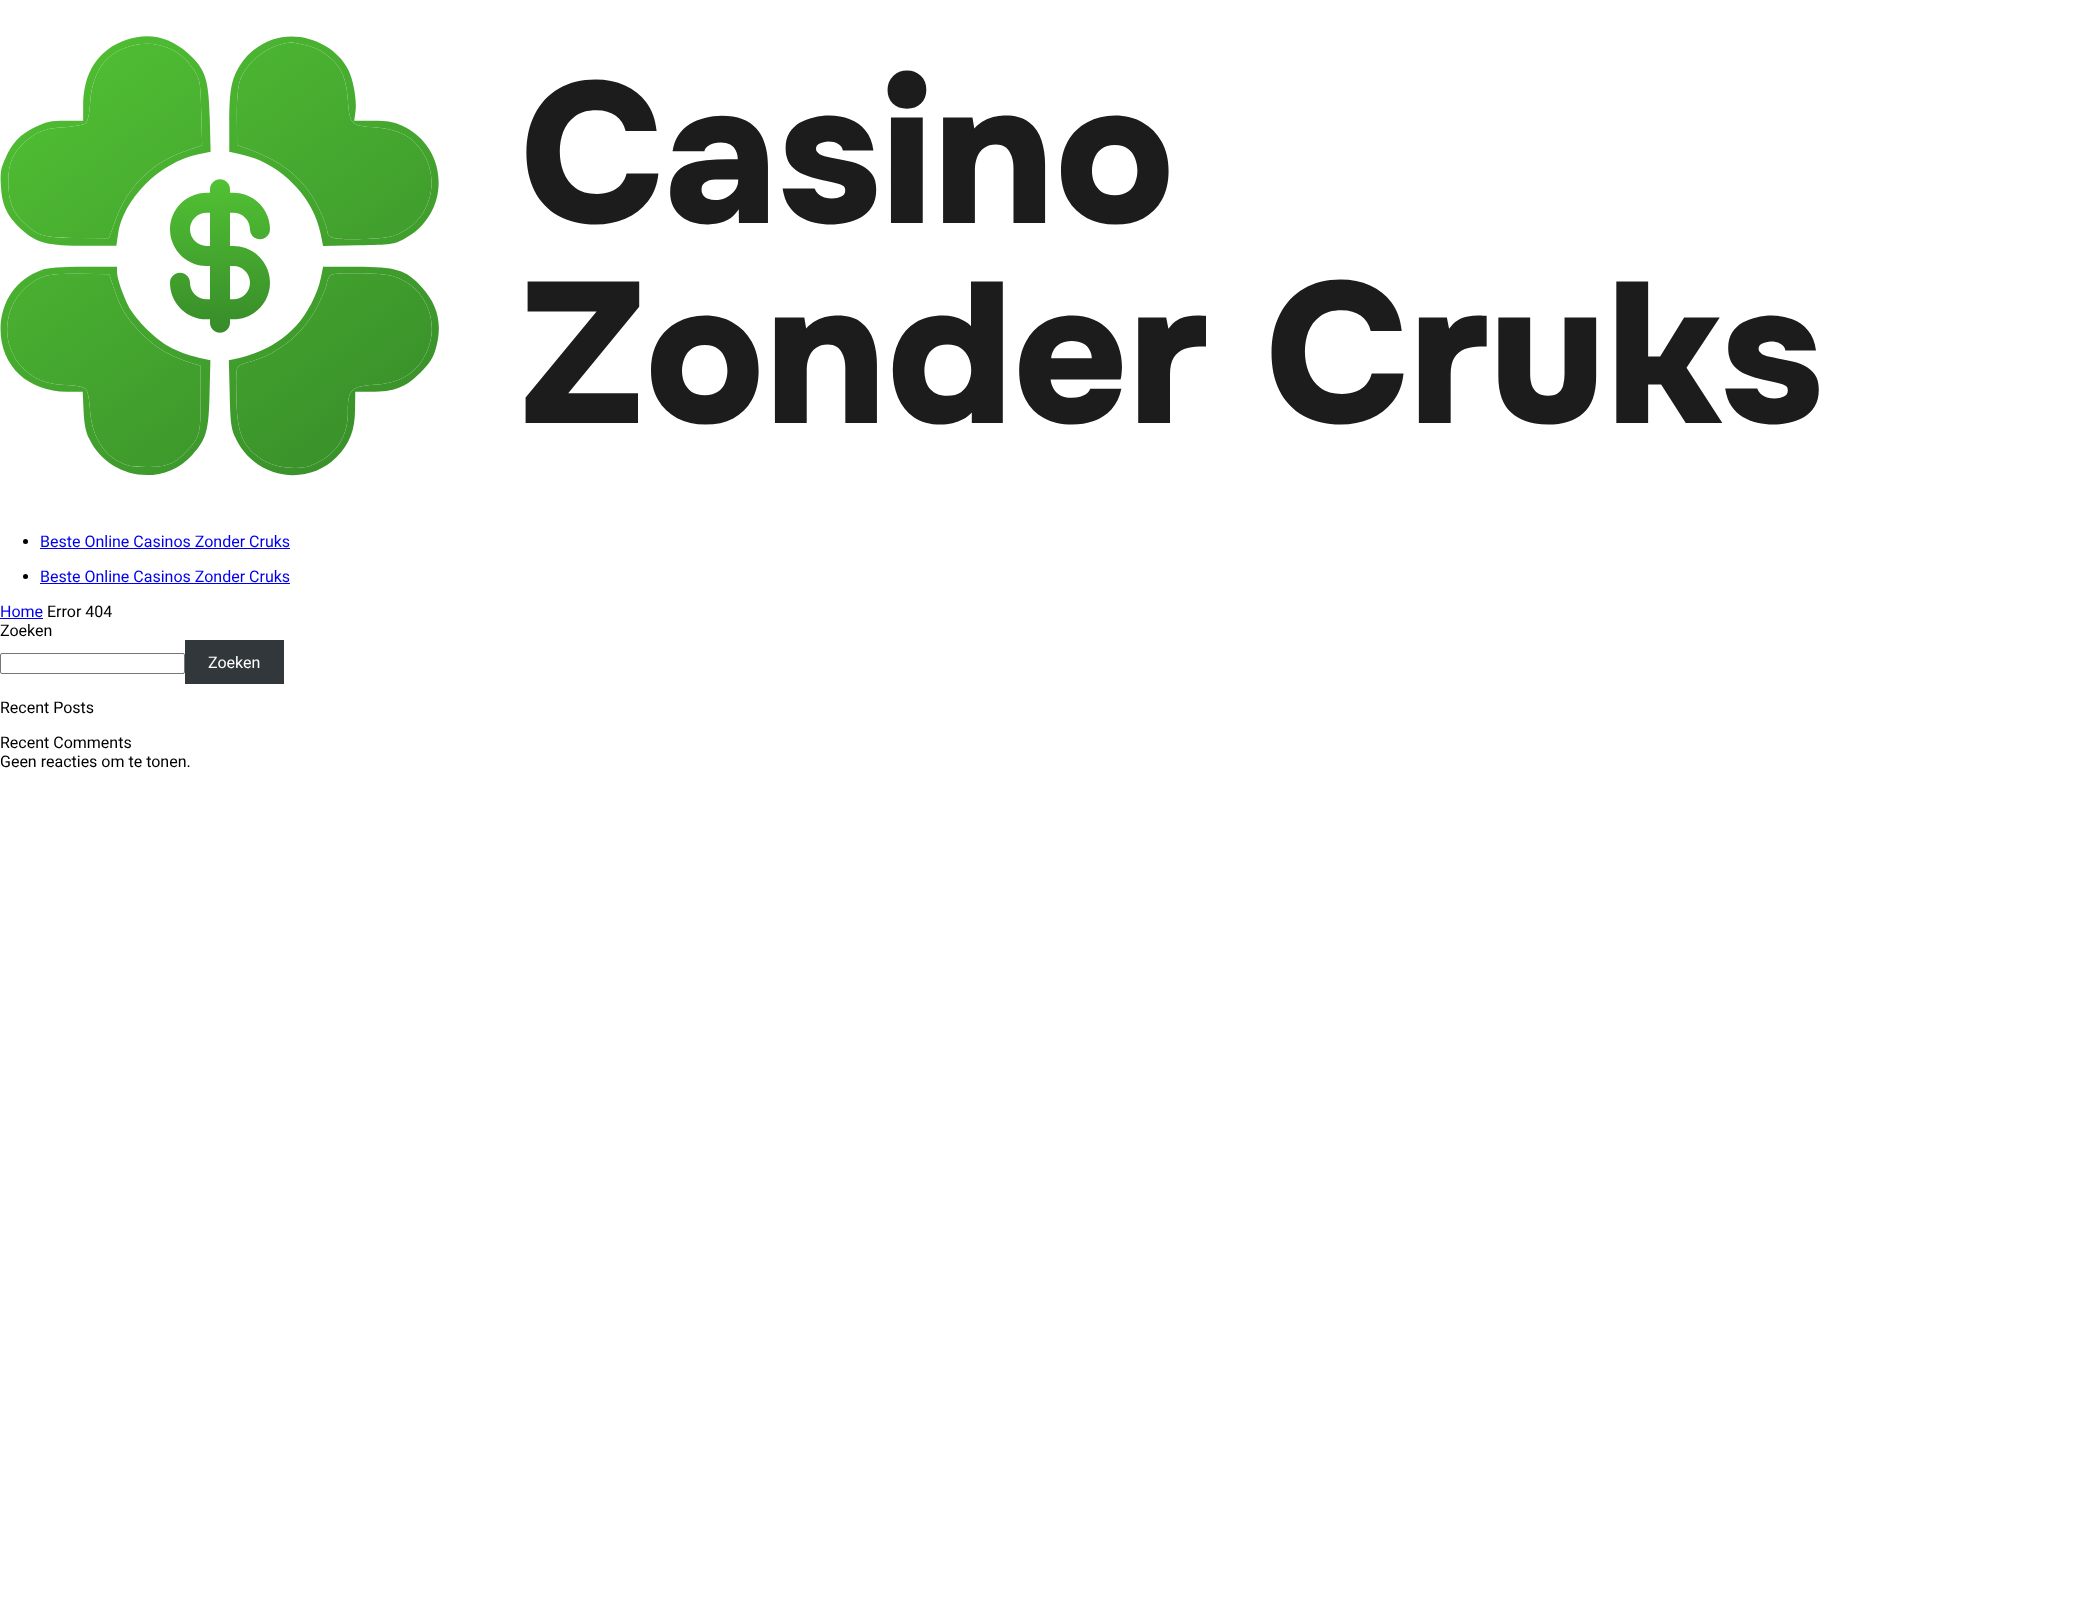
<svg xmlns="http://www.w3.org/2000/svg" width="2098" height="1619">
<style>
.a{font:16px Roboto;fill:#00e}
.b{font:16px Roboto;fill:#000}
.c{font:16px Roboto;fill:#fff}
</style>
<rect width="100%" height="100%" fill="#fff"/>
<image href="1.png" x="0" y="36" width="1819" height="440"/>
<circle fill="#000" cx="25.5" cy="541.5" r="2.5"/>
<path fill="#00e" d="M40 548h250v1H40z"/>
<circle fill="#000" cx="25.5" cy="576.5" r="2.5"/>
<path fill="#00e" d="M40 583h250v1H40z"/>
<path fill="#00e" d="M0 618h43v1H0z"/>
<rect fill="none" stroke="#767676" x="0.5" y="653.5" width="184" height="20" rx="1.5"/>
<path fill="#32373c" d="M185 640h99v44H185z"/>
<text class="a" x="40" y="547">Beste Online Casinos Zonder Cruks</text>
<text class="a" x="40" y="582">Beste Online Casinos Zonder Cruks</text>
<text class="a" x="0" y="617">Home</text>
<text class="b" x="47" y="617">Error 404</text>
<text class="b" x="0" y="636">Zoeken</text>
<text class="c" x="208" y="668">Zoeken</text>
<text class="b" x="0" y="713">Recent Posts</text>
<text class="b" x="0" y="748">Recent Comments</text>
<text class="b" x="0" y="767">Geen reacties om te tonen.</text>
</svg>
